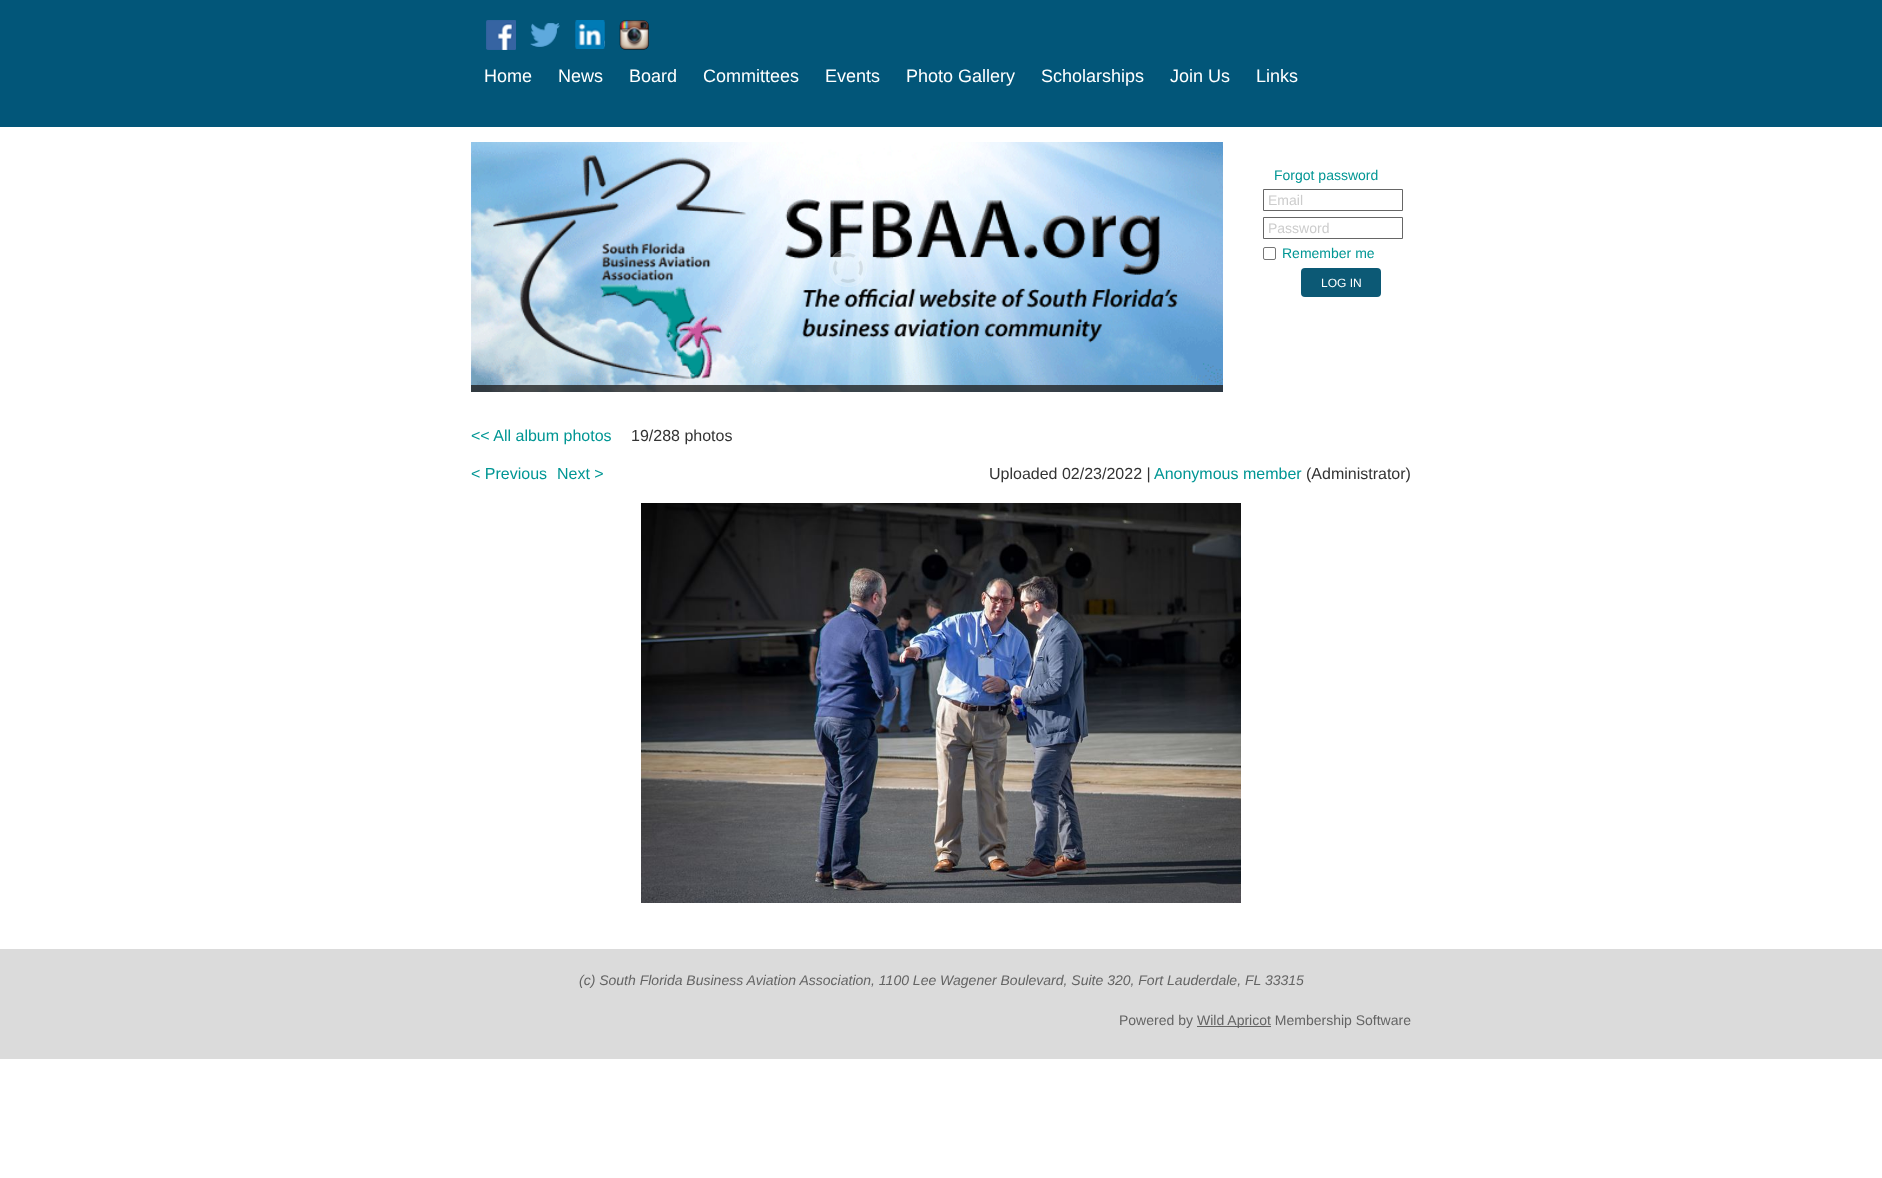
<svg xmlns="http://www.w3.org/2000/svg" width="1882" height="1178">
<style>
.a{font:18px Liberation Sans;fill:#fff}
.b{font:14px Liberation Sans;fill:#009694}
.c{font:14px Liberation Sans;fill:#ccc}
.d{font:12px Liberation Sans;fill:#fff}
.e{font:16px Liberation Sans;fill:#009694}
.f{font:16px Liberation Sans;fill:#333}
.g{font:italic 14px Liberation Sans;fill:#646464}
.h{font:14px Liberation Sans;fill:#646464}
</style>
<rect width="100%" height="100%" fill="#fff"/>
<path fill="#025679" d="M0 0h1882v127H0z"/>
<image href="1.png" x="486" y="20" width="30" height="30"/>
<image href="2.png" x="530" y="23" width="30" height="24"/>
<image href="3.png" x="575" y="20" width="30" height="29"/>
<image href="4.png" x="619" y="20" width="30" height="30"/>
<image href="5.png" x="471" y="142" width="752" height="250"/>
<path fill="#222222cc" d="M471 385h752v7H471z"/>
<rect fill="#ffffff21" x="829" y="249" width="38" height="38" rx="18"/>
<image href="6.png" x="833" y="253" width="30" height="30"/>
<rect fill="none" stroke="#ffffff26" x="829.5" y="249.5" width="37" height="37" rx="17.5"/>
<path fill="none" stroke="#666" d="M1263.5 189.5h139v21H1263.5z"/>
<path fill="none" stroke="#666" d="M1263.5 217.5h139v21H1263.5z"/>
<rect fill="none" stroke="#767676" x="1263.5" y="247.5" width="12" height="12" rx="1.5"/>
<rect fill="#0c5975" x="1301" y="268" width="80" height="29" rx="4"/>
<image href="7.png" x="641" y="503" width="600" height="400"/>
<path fill="#dbdbdb" d="M0 949h1882v110H0z"/>
<path fill="#646464" d="M1197 1026h74v1H1197z"/>
<text class="a" x="484" y="82">Home</text>
<text class="a" x="558" y="82">News</text>
<text class="a" x="629" y="82">Board</text>
<text class="a" x="703" y="82">Committees</text>
<text class="a" x="825" y="82">Events</text>
<text class="a" x="906" y="82">Photo Gallery</text>
<text class="a" x="1041" y="82">Scholarships</text>
<text class="a" x="1170" y="82">Join Us</text>
<text class="a" x="1256" y="82">Links</text>
<text class="b" x="1274" y="180">Forgot password</text>
<text class="c" x="1268" y="205">Email</text>
<text class="c" x="1268" y="233">Password</text>
<text class="b" x="1282" y="258">Remember me</text>
<text class="d" x="1321" y="287">LOG IN</text>
<text class="e" x="471" y="441">&lt;&lt; All album photos</text>
<text class="f" x="631" y="441">19/288 photos</text>
<text class="e" x="471" y="479">&lt; Previous</text>
<text class="e" x="557" y="479">Next &gt;</text>
<text class="f" x="989" y="479">Uploaded 02/23/2022 |</text>
<text class="e" x="1154" y="479">Anonymous member</text>
<text class="f" x="1306" y="479">(Administrator)</text>
<text class="g" x="579" y="985">(c) South Florida Business Aviation Association, 1100 Lee Wagener Boulevard, Suite 320, Fort Lauderdale, FL 33315</text>
<text class="h" x="1119" y="1025">Powered by</text>
<text class="h" x="1197" y="1025">Wild Apricot Membership Software</text>
</svg>
